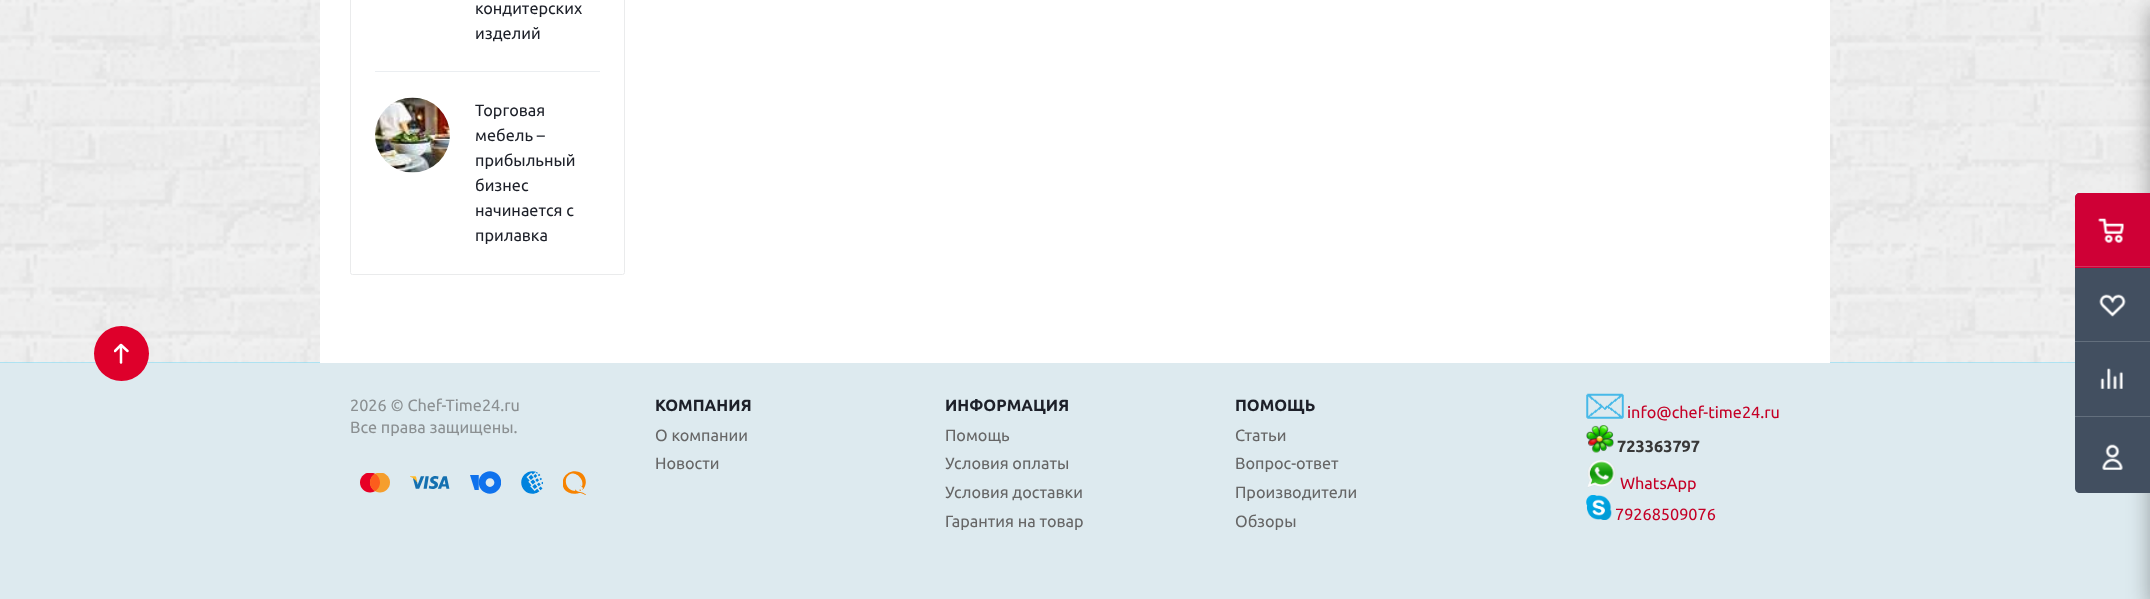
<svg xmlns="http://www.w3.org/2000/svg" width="2150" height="599">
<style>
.a{font:16.25px Ubuntu;fill:#1d2029}
.b{font:16.25px Ubuntu;fill:#8b9092}
.c{font:bold 16.25px Ubuntu;fill:#1d2029}
.d{font:16.25px Ubuntu;fill:#666}
.e{font:16.25px Ubuntu;fill:#c50026}
.f{font:bold 16.25px Ubuntu;fill:#383838}
</style>
<defs>
<clipPath id="clip1"><path d="M114 344h15v125H114z"/></clipPath>
</defs>
<rect width="100%" height="100%" fill="#fff"/>
<image href="7.png" x="0" y="362" width="2075" height="1"/>
<image href="1.png" x="0" y="0" width="2150" height="363"/>
<path fill="#fff" d="M320 0h1510v363H320z"/>
<rect fill="none" stroke="#eaebec" x="350.5" y="-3.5" width="274" height="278" rx="2"/>
<path fill="#ebeef1" d="M375 71h225v1H375z"/>
<image href="2.png" x="375" y="97" width="75" height="76"/>
<path fill="#ddeaef" d="M0 363h2150v236H0z"/>
<rect fill="#2c2c2c66" filter="blur(11px)" x="2150" y="8" width="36" height="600" rx="2.5"/>
<path fill="#424f60" d="M2080 193h70v300h-70c-3 0-5-2-5-5v-290c0-3 2-5 5-5z"/>
<path fill="#cf0036" d="M2080 193h70v75h-75v-70c0-3 2-5 5-5z"/>
<image href="3.png" x="2098" y="218" width="26" height="25"/>
<path fill="#d42f5c" d="M2075 266h75v1H2075z"/>
<image href="4.png" x="2099" y="294" width="27" height="23"/>
<path fill="#636f7d" d="M2075 341h75v1H2075z"/>
<image href="5.png" x="2100" y="368" width="23" height="21"/>
<path fill="#636f7d" d="M2075 416h75v1H2075z"/>
<image href="6.png" x="2102" y="444" width="21" height="26"/>
<circle fill="#de002b" cx="121.5" cy="353.5" r="27.5"/>
<path fill="none" stroke="#fff" stroke-width="2.5" stroke-linecap="round" stroke-linejoin="round" d="M121 345v17.5"/>
<g clip-path="url(#clip1)">
<path fill="none" stroke="#fff" stroke-width="2.5" stroke-linecap="round" stroke-linejoin="round" d="M115 351l6-6l6.5 6"/>
</g>
<image href="8.png" x="360" y="473" width="30" height="20"/>
<image href="9.png" x="410" y="476" width="40" height="13"/>
<image href="10.png" x="470" y="471" width="31" height="23"/>
<image href="11.png" x="521" y="471" width="22" height="23"/>
<image href="12.png" x="563" y="471" width="23" height="24"/>
<image href="13.png" x="1586" y="393" width="38" height="26"/>
<image href="14.png" x="1586" y="425" width="28" height="28"/>
<image href="15.png" x="1587" y="460" width="29" height="28"/>
<image href="16.png" x="1586" y="495" width="26" height="25"/>
<text class="a" x="475" y="14">кондитерских</text>
<text class="a" x="475" y="39">изделий</text>
<text class="a" x="475" y="116">Торговая</text>
<text class="a" x="475" y="141">мебель –</text>
<text class="a" x="475" y="166">прибыльный</text>
<text class="a" x="475" y="191">бизнес</text>
<text class="a" x="475" y="216">начинается с</text>
<text class="a" x="475" y="241">прилавка</text>
<text class="b" x="350" y="411">2026 © Chef-Time24.ru</text>
<text class="b" x="350" y="433">Все права защищены.</text>
<text class="c" x="655" y="411">КОМПАНИЯ</text>
<text class="c" x="945" y="411">ИНФОРМАЦИЯ</text>
<text class="c" x="1235" y="411">ПОМОЩЬ</text>
<text class="d" x="655" y="441">О компании</text>
<text class="d" x="655" y="469">Новости</text>
<text class="d" x="945" y="441">Помощь</text>
<text class="d" x="945" y="469">Условия оплаты</text>
<text class="d" x="945" y="498">Условия доставки</text>
<text class="d" x="945" y="527">Гарантия на товар</text>
<text class="d" x="1235" y="441">Статьи</text>
<text class="d" x="1235" y="469">Вопрос-ответ</text>
<text class="d" x="1235" y="498">Производители</text>
<text class="d" x="1235" y="527">Обзоры</text>
<text class="e" x="1627" y="418">info@chef-time24.ru</text>
<text class="f" x="1617" y="452">723363797</text>
<text class="e" x="1620" y="489">WhatsApp</text>
<text class="e" x="1615" y="520">79268509076</text>
</svg>
